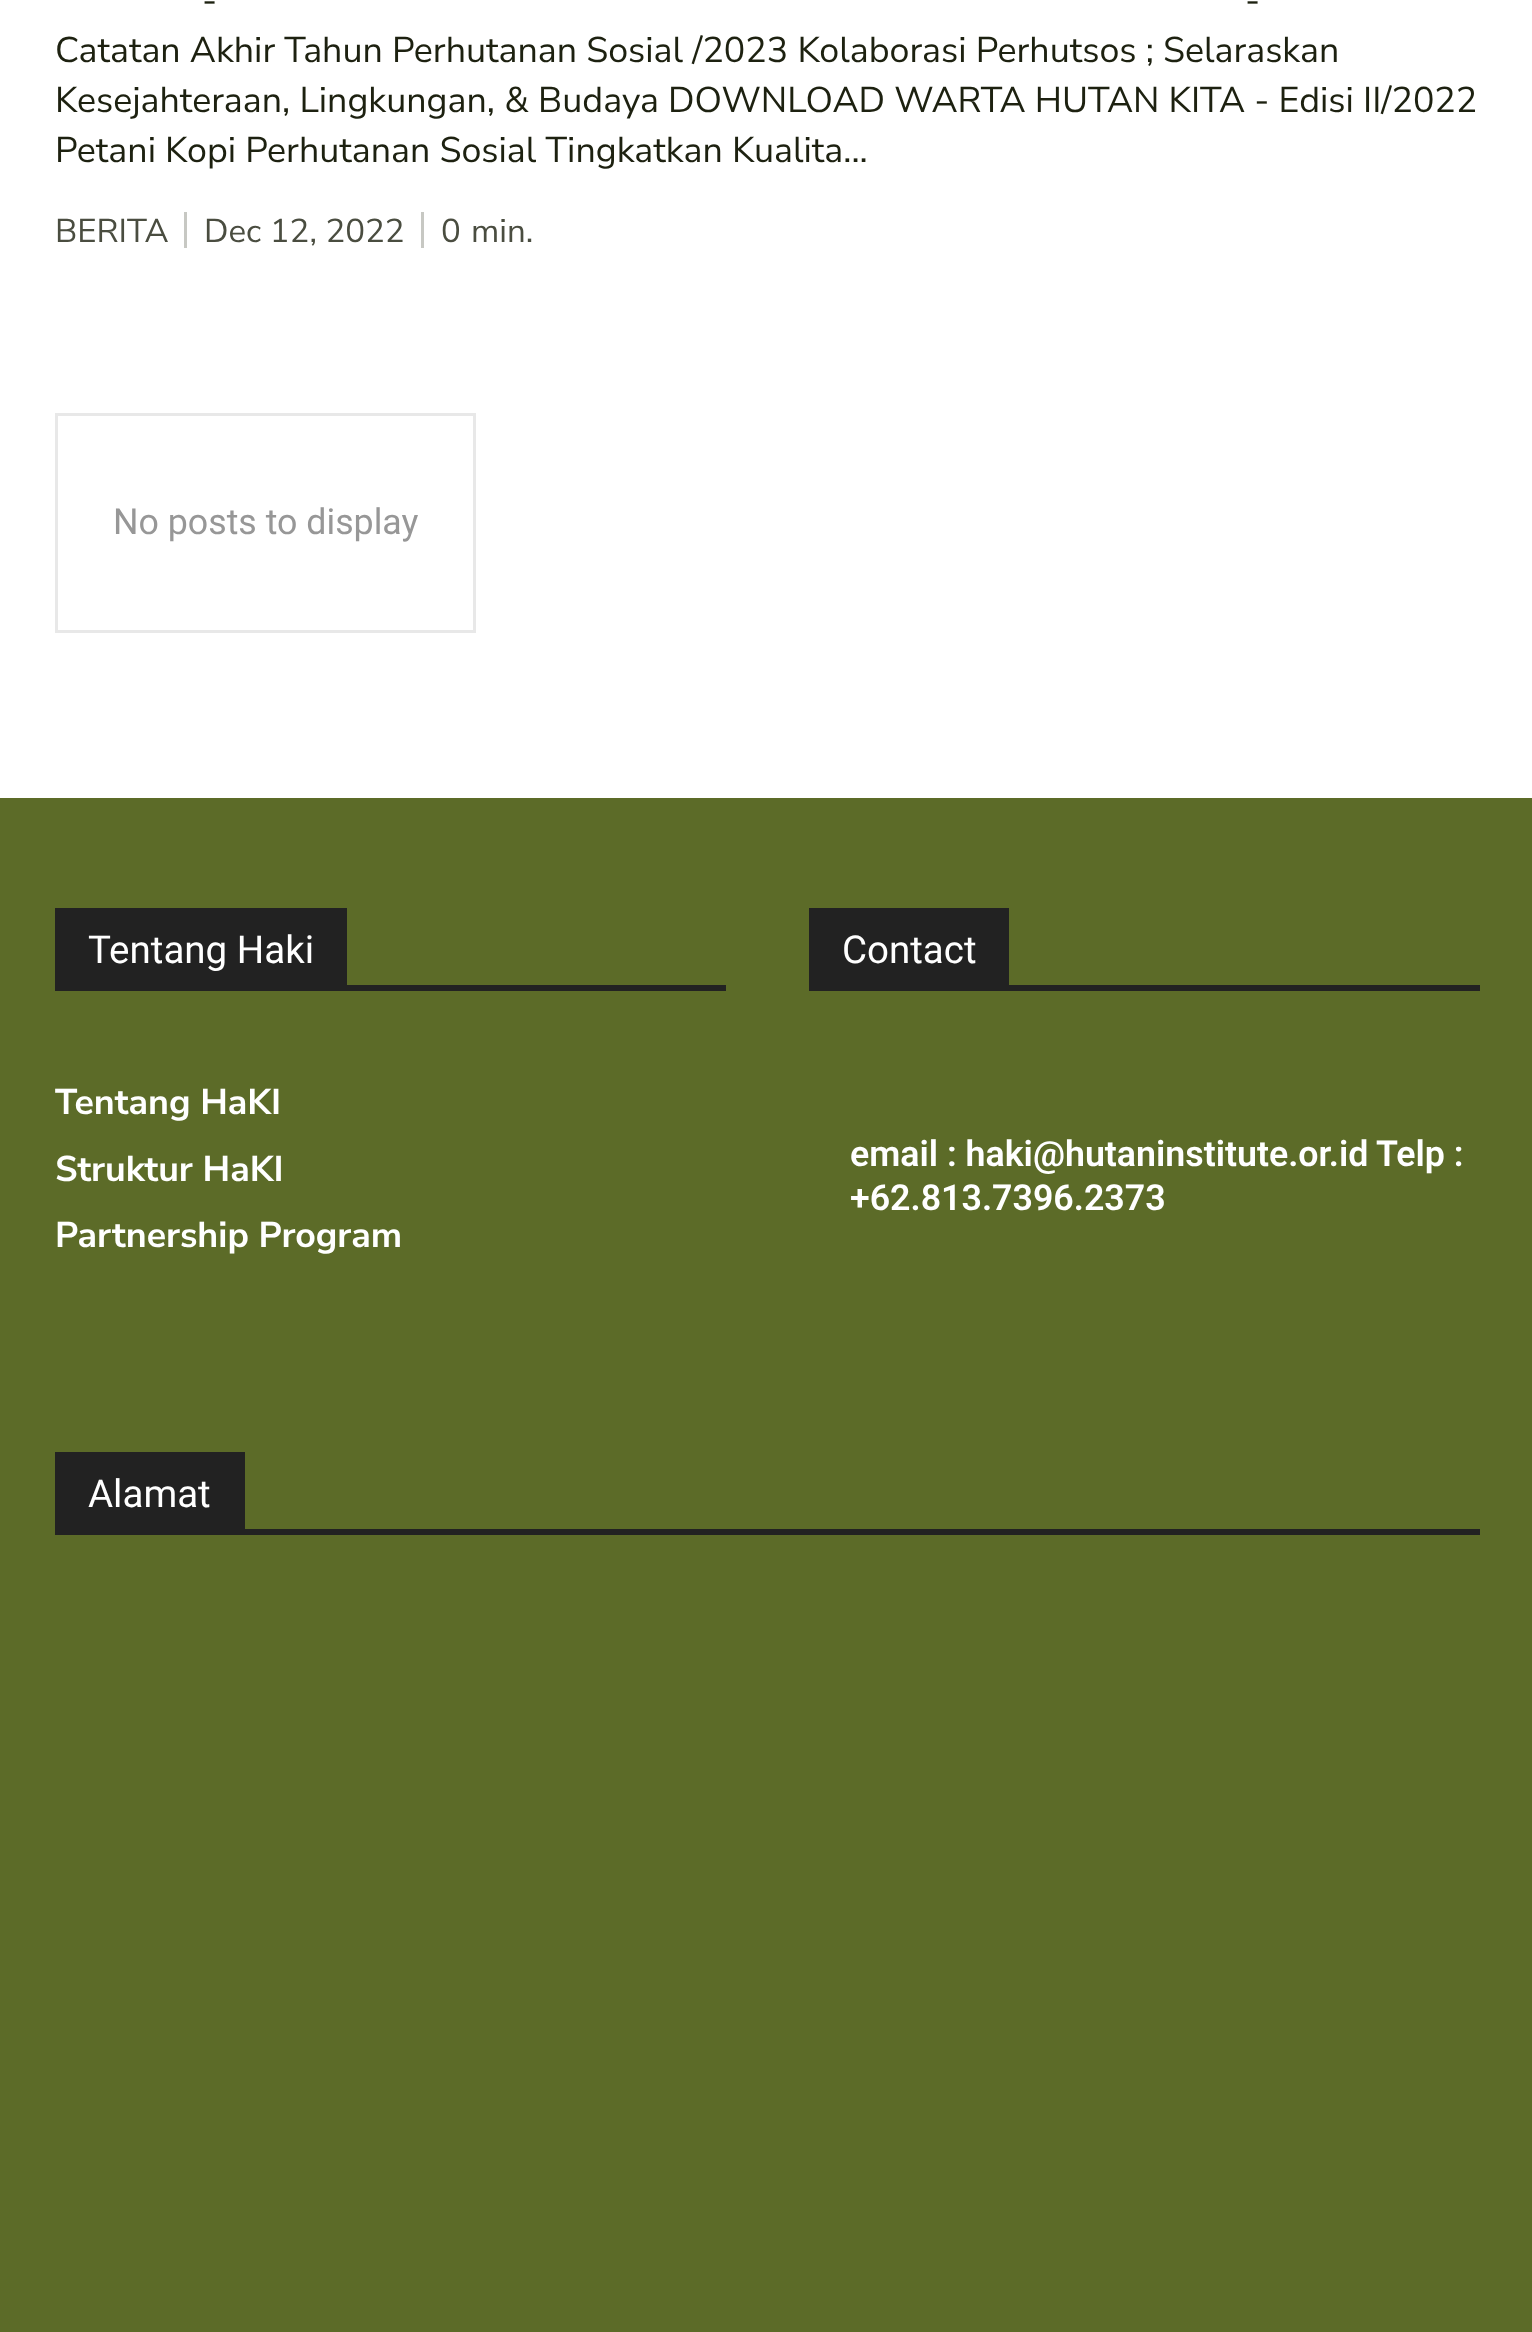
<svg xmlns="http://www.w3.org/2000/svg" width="1532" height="2332">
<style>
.a{font:35.75px Nunito Sans;fill:#1d2110}
.b{font:33px Nunito Sans;fill:#4a4d40}
.c{font:35.75px Roboto;fill:#979797}
.d{font:38.5px Roboto;fill:#fff}
.e{font:bold 35.75px Nunito Sans;fill:#fff}
.f{font:600 35.75px Roboto;fill:#fff}
</style>
<rect width="100%" height="100%" fill="#fff"/>
<path fill="#c7c8c3" d="M184 212h3v36H184z"/>
<path fill="#c7c8c3" d="M421 212h3v36H421z"/>
<path fill="none" stroke="#e8e8e8" stroke-width="3" d="M56.5 414.5h418v217H56.5z"/>
<path fill="#5c6b28" d="M0 798h1532v1534H0z"/>
<path fill="#222" d="M55 985h671v6H55z"/>
<path fill="#222" d="M55 908h292v77H55z"/>
<path fill="#222" d="M809 985h671v6H809z"/>
<path fill="#222" d="M809 908h200v77H809z"/>
<path fill="#222" d="M55 1529h1425v6H55z"/>
<path fill="#222" d="M55 1452h190v77H55z"/>
<text class="a" x="202" y="12">-</text>
<text class="a" x="1245" y="12">-</text>
<text class="a" x="55" y="62">Catatan Akhir Tahun Perhutanan Sosial /2023 Kolaborasi Perhutsos ; Selaraskan</text>
<text class="a" x="55" y="112">Kesejahteraan, Lingkungan, &amp; Budaya DOWNLOAD WARTA HUTAN KITA - Edisi II/2022</text>
<text class="a" x="55" y="162">Petani Kopi Perhutanan Sosial Tingkatkan Kualita...</text>
<text class="b" x="55" y="242">BERITA</text>
<text class="b" x="204" y="242">Dec 12, 2022</text>
<text class="b" x="441" y="242">0</text>
<text class="b" x="471" y="242">min.</text>
<text class="c" x="113" y="534">No posts to display</text>
<text class="d" x="88" y="963">Tentang Haki</text>
<text class="e" x="55" y="1114">Tentang HaKI</text>
<text class="e" x="55" y="1181">Struktur HaKI</text>
<text class="e" x="55" y="1247">Partnership Program</text>
<text class="d" x="842" y="963">Contact</text>
<text class="f" x="850" y="1166">email : haki@hutaninstitute.or.id</text>
<text class="f" x="1376" y="1166">Telp :</text>
<text class="f" x="850" y="1210">+62.813.7396.2373</text>
<text class="d" x="88" y="1507">Alamat</text>
</svg>
